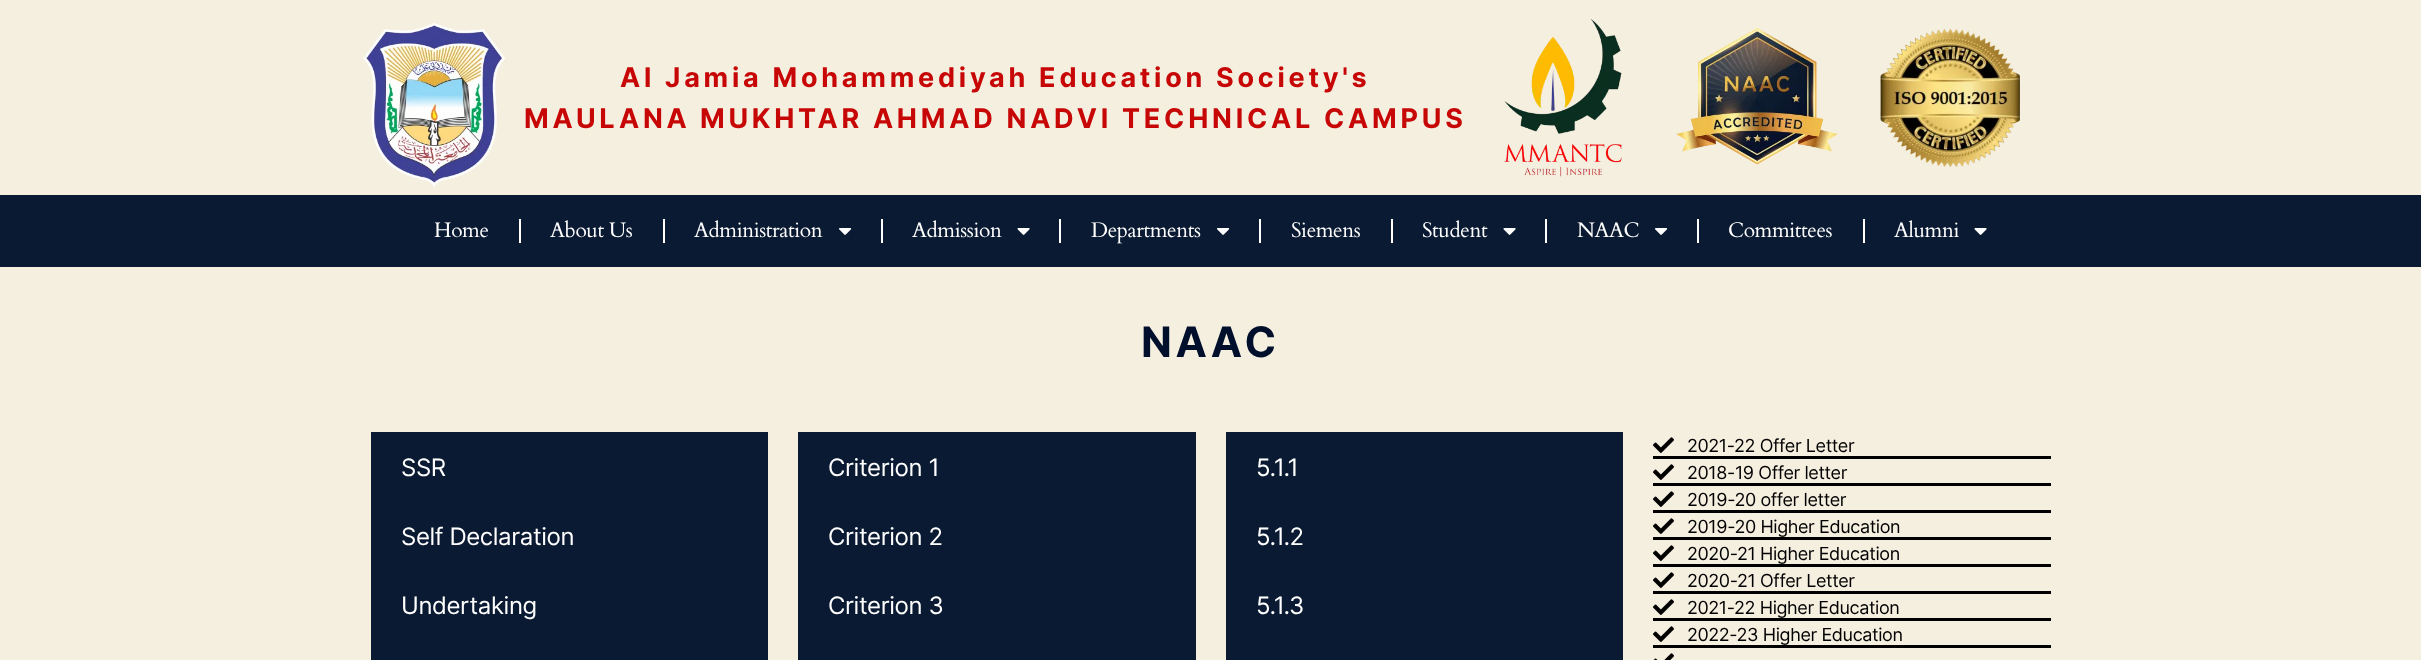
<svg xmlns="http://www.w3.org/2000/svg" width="2421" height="660">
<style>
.a{font:bold 27px Inter;letter-spacing:3.75px;fill:#c70606}
.b{font:21px Cardo;letter-spacing:-0.4px;fill:#fff}
.c{font:bold 42px Inter;letter-spacing:3.75px;fill:#000f2b}
.d{font:24px Inter;letter-spacing:-0.4px;fill:#fff}
.e{font:18px Inter;letter-spacing:-0.4px;fill:#000}
</style>
<rect width="100%" height="100%" fill="#f5efe0"/>
<image href="1.png" x="363" y="23" width="143" height="165"/>
<image href="2.png" x="1504" y="19" width="118" height="158"/>
<image href="3.png" x="1676" y="28" width="162" height="137"/>
<image href="4.png" x="1880" y="28" width="140" height="139"/>
<path fill="#0a1a32" d="M0 195h2421v72H0z"/>
<path fill="#fff" d="M519 219h2v24H519z"/>
<path fill="#fff" d="M663 219h2v24H663z"/>
<image href="5.png" x="839" y="228" width="13" height="7"/>
<path fill="#fff" d="M881 219h2v24H881z"/>
<image href="6.png" x="1017" y="228" width="13" height="7"/>
<path fill="#fff" d="M1059 219h2v24H1059z"/>
<image href="5.png" x="1217" y="228" width="13" height="7"/>
<path fill="#fff" d="M1259 219h2v24H1259z"/>
<path fill="#fff" d="M1391 219h2v24H1391z"/>
<image href="6.png" x="1503" y="228" width="13" height="7"/>
<path fill="#fff" d="M1545 219h2v24H1545z"/>
<image href="5.png" x="1655" y="228" width="13" height="7"/>
<path fill="#fff" d="M1697 219h2v24H1697z"/>
<path fill="#fff" d="M1863 219h2v24H1863z"/>
<image href="6.png" x="1974" y="228" width="13" height="7"/>
<path fill="#0a1a32" d="M371 432h397v228H371z"/>
<path fill="#0a1a32" d="M798 432h398v228H798z"/>
<path fill="#0a1a32" d="M1226 432h397v228H1226z"/>
<image href="7.png" x="1653" y="437" width="21" height="16"/>
<path fill="#000" d="M1653 456h398v3H1653z"/>
<image href="7.png" x="1653" y="464" width="21" height="16"/>
<path fill="#000" d="M1653 483h398v3H1653z"/>
<image href="7.png" x="1653" y="491" width="21" height="16"/>
<path fill="#000" d="M1653 510h398v3H1653z"/>
<image href="7.png" x="1653" y="518" width="21" height="16"/>
<path fill="#000" d="M1653 537h398v3H1653z"/>
<image href="7.png" x="1653" y="545" width="21" height="16"/>
<path fill="#000" d="M1653 564h398v3H1653z"/>
<image href="7.png" x="1653" y="572" width="21" height="16"/>
<path fill="#000" d="M1653 591h398v3H1653z"/>
<image href="7.png" x="1653" y="599" width="21" height="16"/>
<path fill="#000" d="M1653 618h398v3H1653z"/>
<image href="7.png" x="1653" y="626" width="21" height="16"/>
<path fill="#000" d="M1653 645h398v3H1653z"/>
<image href="8.png" x="1653" y="653" width="21" height="7"/>
<text class="a" x="620" y="87">Al Jamia Mohammediyah Education Society's</text>
<text class="a" x="524" y="128">MAULANA MUKHTAR AHMAD NADVI TECHNICAL CAMPUS</text>
<text class="b" x="434" y="237">Home</text>
<text class="b" x="550" y="237">About Us</text>
<text class="b" x="694" y="237">Administration</text>
<text class="b" x="912" y="237">Admission</text>
<text class="b" x="1091" y="237">Departments</text>
<text class="b" x="1291" y="237">Siemens</text>
<text class="b" x="1422" y="237">Student</text>
<text class="b" x="1577" y="237">NAAC</text>
<text class="b" x="1728" y="237">Committees</text>
<text class="b" x="1894" y="237">Alumni</text>
<text class="c" x="1141" y="357">NAAC</text>
<text class="d" x="401" y="476">SSR</text>
<text class="d" x="401" y="545">Self Declaration</text>
<text class="d" x="401" y="614">Undertaking</text>
<text class="d" x="828" y="476">Criterion 1</text>
<text class="d" x="828" y="545">Criterion 2</text>
<text class="d" x="828" y="614">Criterion 3</text>
<text class="d" x="1256" y="476">5.1.1</text>
<text class="d" x="1256" y="545">5.1.2</text>
<text class="d" x="1256" y="614">5.1.3</text>
<text class="e" x="1687" y="452">2021-22 Offer Letter</text>
<text class="e" x="1687" y="479">2018-19 Offer letter</text>
<text class="e" x="1687" y="506">2019-20 offer letter</text>
<text class="e" x="1687" y="533">2019-20 Higher Education</text>
<text class="e" x="1687" y="560">2020-21 Higher Education</text>
<text class="e" x="1687" y="587">2020-21 Offer Letter</text>
<text class="e" x="1687" y="614">2021-22 Higher Education</text>
<text class="e" x="1687" y="641">2022-23 Higher Education</text>
</svg>
